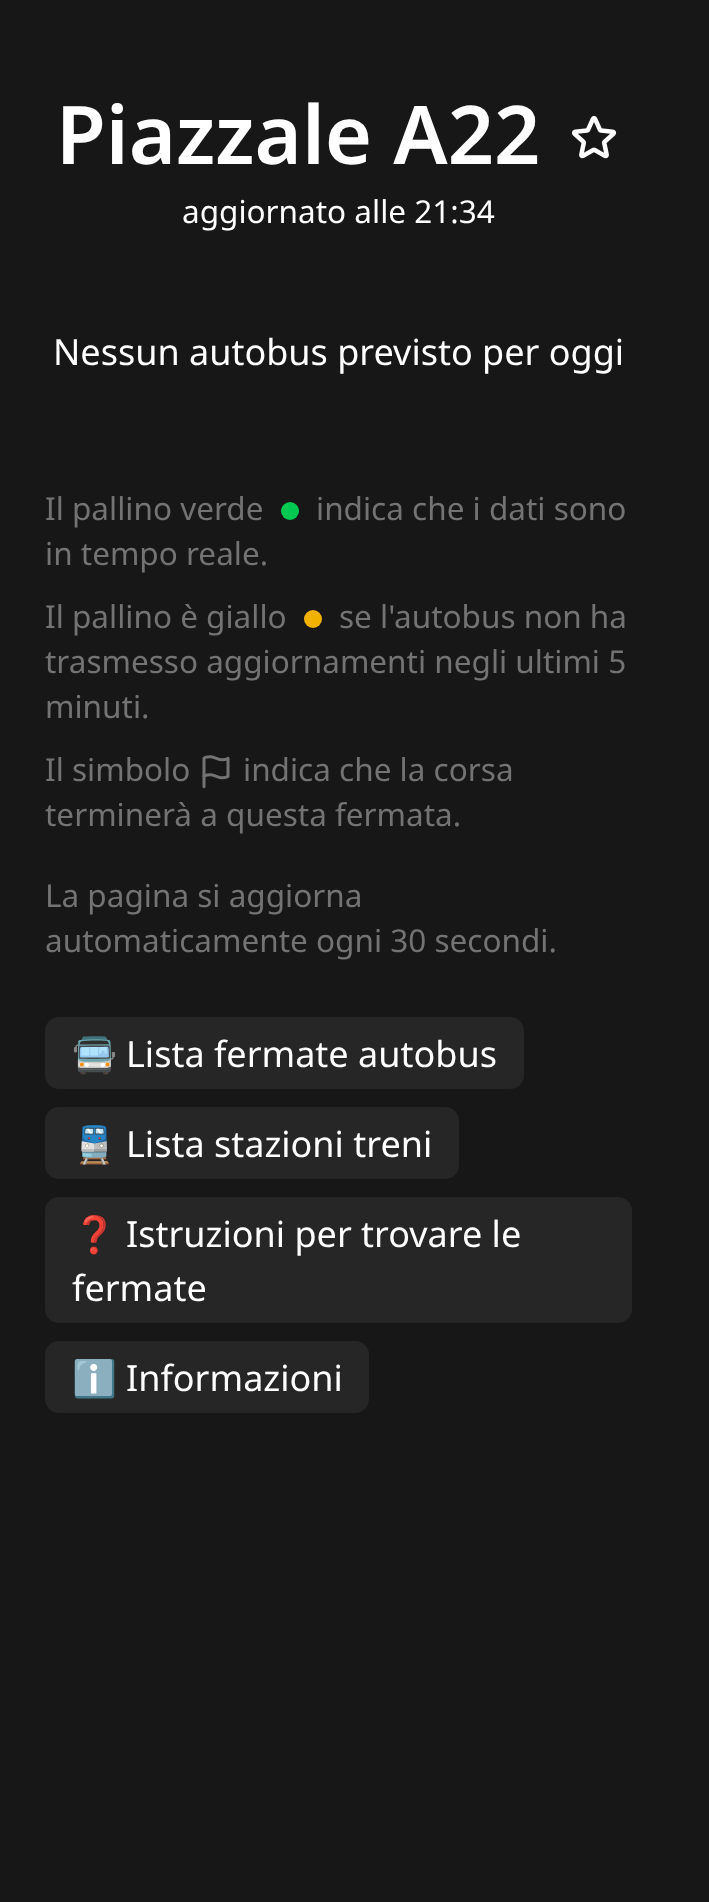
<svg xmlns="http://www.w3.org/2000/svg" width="709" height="1902">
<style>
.a{font:600 81px Noto Sans;fill:#fff}
.b{font:31.5px Noto Sans;fill:#fff}
.c{font:36px Noto Sans;fill:#fff}
.d{font:31.5px Noto Sans;fill:#737373}
.e{font:36px Noto Color Emoji;fill:#fff}
</style>
<rect width="100%" height="100%" fill="#171717"/>
<image href="1.png" x="571" y="115" width="46" height="44"/>
<circle fill="#00c951" cx="290" cy="511" r="9"/>
<circle fill="#f0b100" cx="313" cy="619" r="9"/>
<image href="2.png" x="202" y="755" width="28" height="34"/>
<rect fill="#262626" x="45" y="1017" width="479" height="72" rx="14"/>
<rect fill="#262626" x="45" y="1107" width="414" height="72" rx="14"/>
<rect fill="#262626" x="45" y="1197" width="587" height="126" rx="14"/>
<rect fill="#262626" x="45" y="1341" width="324" height="72" rx="14"/>
<text class="a" x="56" y="164">Piazzale A22</text>
<text class="b" x="182" y="223">aggiornato alle 21:34</text>
<text class="c" x="53" y="365">Nessun autobus previsto per oggi</text>
<text class="d" x="45" y="520">Il pallino verde</text>
<text class="d" x="316" y="520">indica che i dati sono</text>
<text class="d" x="45" y="565">in tempo reale.</text>
<text class="d" x="45" y="628">Il pallino è giallo</text>
<text class="d" x="339" y="628">se l'autobus non ha</text>
<text class="d" x="45" y="673">trasmesso aggiornamenti negli ultimi 5</text>
<text class="d" x="45" y="718">minuti.</text>
<text class="d" x="45" y="781">Il simbolo</text>
<text class="d" x="243" y="781">indica che la corsa</text>
<text class="d" x="45" y="826">terminerà a questa fermata.</text>
<text class="d" x="45" y="907">La pagina si aggiorna</text>
<text class="d" x="45" y="952">automaticamente ogni 30 secondi.</text>
<text class="e" x="72" y="1067">🚍</text>
<text class="c" x="126" y="1067">Lista fermate autobus</text>
<text class="e" x="72" y="1157">🚆</text>
<text class="c" x="126" y="1157">Lista stazioni treni</text>
<text class="e" x="72" y="1247">❓</text>
<text class="c" x="126" y="1247">Istruzioni per trovare le</text>
<text class="c" x="72" y="1301">fermate</text>
<text class="e" x="72" y="1391">ℹ️</text>
<text class="c" x="126" y="1391">Informazioni</text>
</svg>
